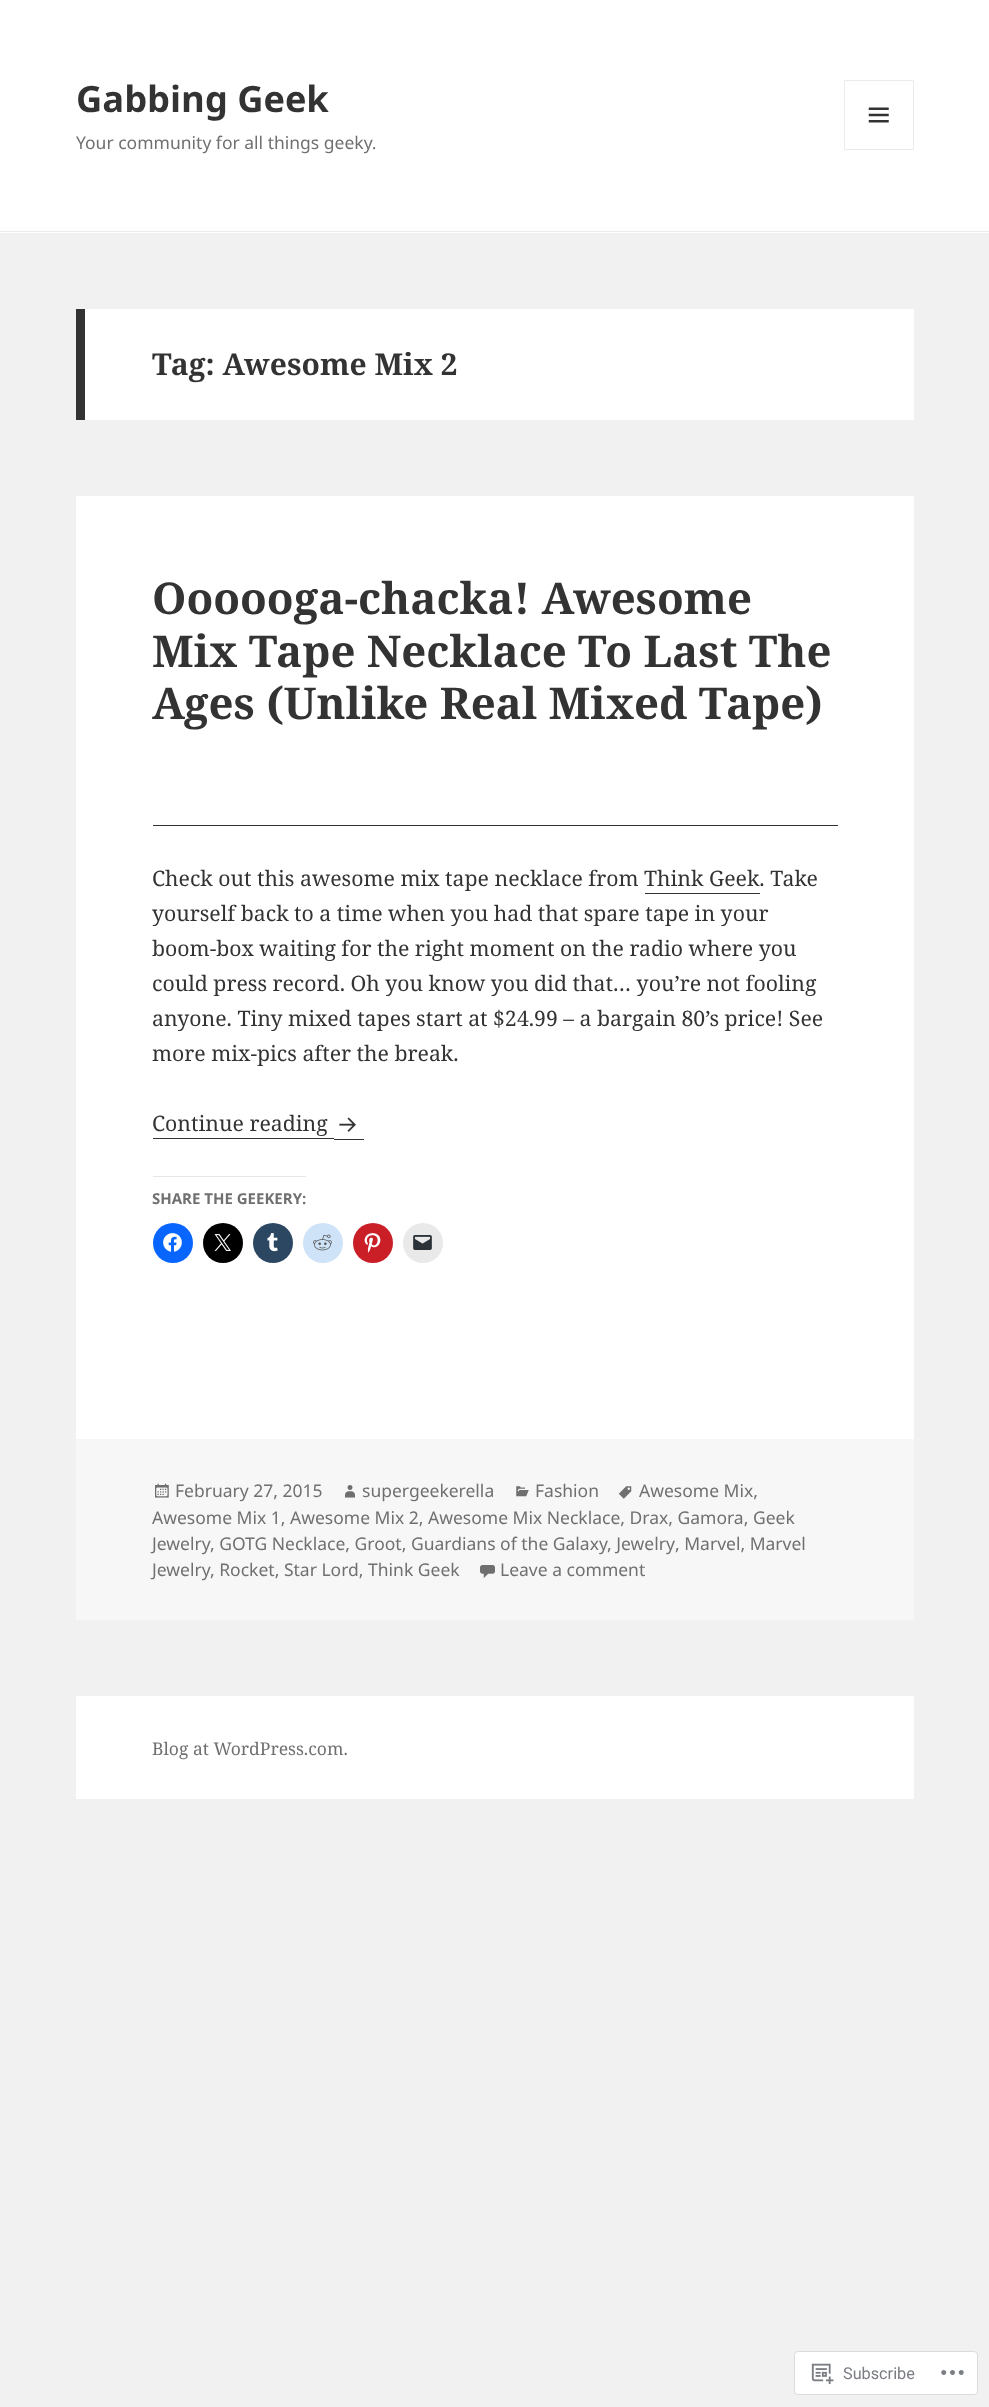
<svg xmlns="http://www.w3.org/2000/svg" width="989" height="2407">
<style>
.a{font:bold 36.25px Noto Sans;fill:#333}
.b{font:17.5px Noto Sans;fill:#707070}
.c{font:bold 30px Noto Serif;fill:#333}
.d{font:bold 43.75px Noto Serif;fill:#333}
.e{font:21.25px Noto Serif;fill:#333}
.f{font:bold 15px Noto Sans;fill:#707070}
.g{font:17.5px Noto Serif;fill:#707070}
.h{font:16.25px Roboto;fill:#7a7e84}
</style>
<rect width="100%" height="100%" fill="#f1f1f1"/>
<path fill="#fff" d="M0 0h989v233H0z"/>
<path fill="#ebebeb" d="M0 231h989v1H0z"/>
<path fill="none" stroke="#ebebeb" d="M844.5 80.5h69v69H844.5z"/>
<image href="1.png" x="868" y="107" width="21" height="16"/>
<path fill="#fff" d="M85 309h829v111H85z"/>
<path fill="#333" d="M76 309h9v111H76z"/>
<path fill="#fff" d="M76 496h838v943H76z"/>
<path fill="#333" d="M153 825h685v1H153z"/>
<path fill="#333" d="M645 893h115v1H645z"/>
<path fill="#333" d="M153 1138h181v1H153z"/>
<path fill="#333" d="M334 1139h30v1H334z"/>
<image href="2.png" x="339" y="1117" width="17" height="15"/>
<path fill="#e7e7e8" d="M153 1176h153v1H153z"/>
<circle fill="#0866ff" cx="173" cy="1243" r="20"/>
<image href="3.png" x="163" y="1233" width="19" height="19"/>
<circle fill="#000" cx="223" cy="1243" r="20"/>
<image href="4.png" x="214" y="1234" width="17" height="17"/>
<circle fill="#2c4762" cx="273" cy="1243" r="20"/>
<image href="5.png" x="267" y="1233" width="11" height="19"/>
<circle fill="#cee3f8" cx="323" cy="1243" r="20"/>
<image href="6.png" x="313" y="1234" width="19" height="17"/>
<circle fill="#ca1f27" cx="373" cy="1243" r="20"/>
<image href="7.png" x="364" y="1233" width="17" height="20"/>
<circle fill="#e9e9e9" cx="423" cy="1243" r="20"/>
<image href="8.png" x="413" y="1235" width="19" height="15"/>
<path fill="#f7f7f7" d="M76 1439h838v181H76z"/>
<image href="9.png" x="155" y="1483" width="14" height="15"/>
<image href="10.png" x="345" y="1485" width="10" height="13"/>
<image href="11.png" x="516" y="1486" width="13" height="11"/>
<image href="12.png" x="618" y="1486" width="14" height="13"/>
<image href="13.png" x="480" y="1565" width="15" height="13"/>
<path fill="#fff" d="M76 1696h838v103H76z"/>
<rect fill="#fff" stroke="#dcdcde" x="794.5" y="2351.5" width="183" height="43" rx="3.5"/>
<image href="14.png" x="811" y="2363" width="23" height="22"/>
<image href="15.png" x="941" y="2370" width="23" height="5"/>
<text class="a" x="76" y="112">Gabbing Geek</text>
<text class="b" x="76" y="149">Your community for all things geeky.</text>
<text class="c" x="152" y="375">Tag: Awesome Mix 2</text>
<text class="d" x="152" y="614">Oooooga-chacka! Awesome</text>
<text class="d" x="152" y="667">Mix Tape Necklace To Last The</text>
<text class="d" x="152" y="719">Ages (Unlike Real Mixed Tape)</text>
<text class="e" x="152" y="886">Check out this awesome mix tape necklace from Think Geek. Take</text>
<text class="e" x="152" y="921">yourself back to a time when you had that spare tape in your</text>
<text class="e" x="152" y="956">boom-box waiting for the right moment on the radio where you</text>
<text class="e" x="152" y="991">could press record. Oh you know you did that… you’re not fooling</text>
<text class="e" x="152" y="1026">anyone. Tiny mixed tapes start at $24.99 – a bargain 80’s price! See</text>
<text class="e" x="152" y="1061">more mix-pics after the break.</text>
<text class="e" x="152" y="1131">Continue reading</text>
<text class="f" x="152" y="1204">SHARE THE GEEKERY:</text>
<text class="b" x="175" y="1497">February 27, 2015</text>
<text class="b" x="362" y="1497">supergeekerella</text>
<text class="b" x="535" y="1497">Fashion</text>
<text class="b" x="639" y="1497">Awesome Mix,</text>
<text class="b" x="152" y="1524">Awesome Mix 1, Awesome Mix 2, Awesome Mix Necklace, Drax, Gamora, Geek</text>
<text class="b" x="152" y="1550">Jewelry</text>
<text class="b" x="210" y="1550">, GOTG Necklace, Groot,</text>
<text class="b" x="411" y="1550">Guardians of the Galaxy</text>
<text class="b" x="607" y="1550">, Jewelry</text>
<text class="b" x="675" y="1550">, Marvel, Marvel</text>
<text class="b" x="152" y="1576">Jewelry</text>
<text class="b" x="210" y="1576">, Rocket, Star Lord, Think Geek</text>
<text class="b" x="500" y="1576">Leave a comment</text>
<text class="g" x="152" y="1755">Blog at WordPress.com.</text>
<text class="h" x="843" y="2379">Subscribe</text>
</svg>
